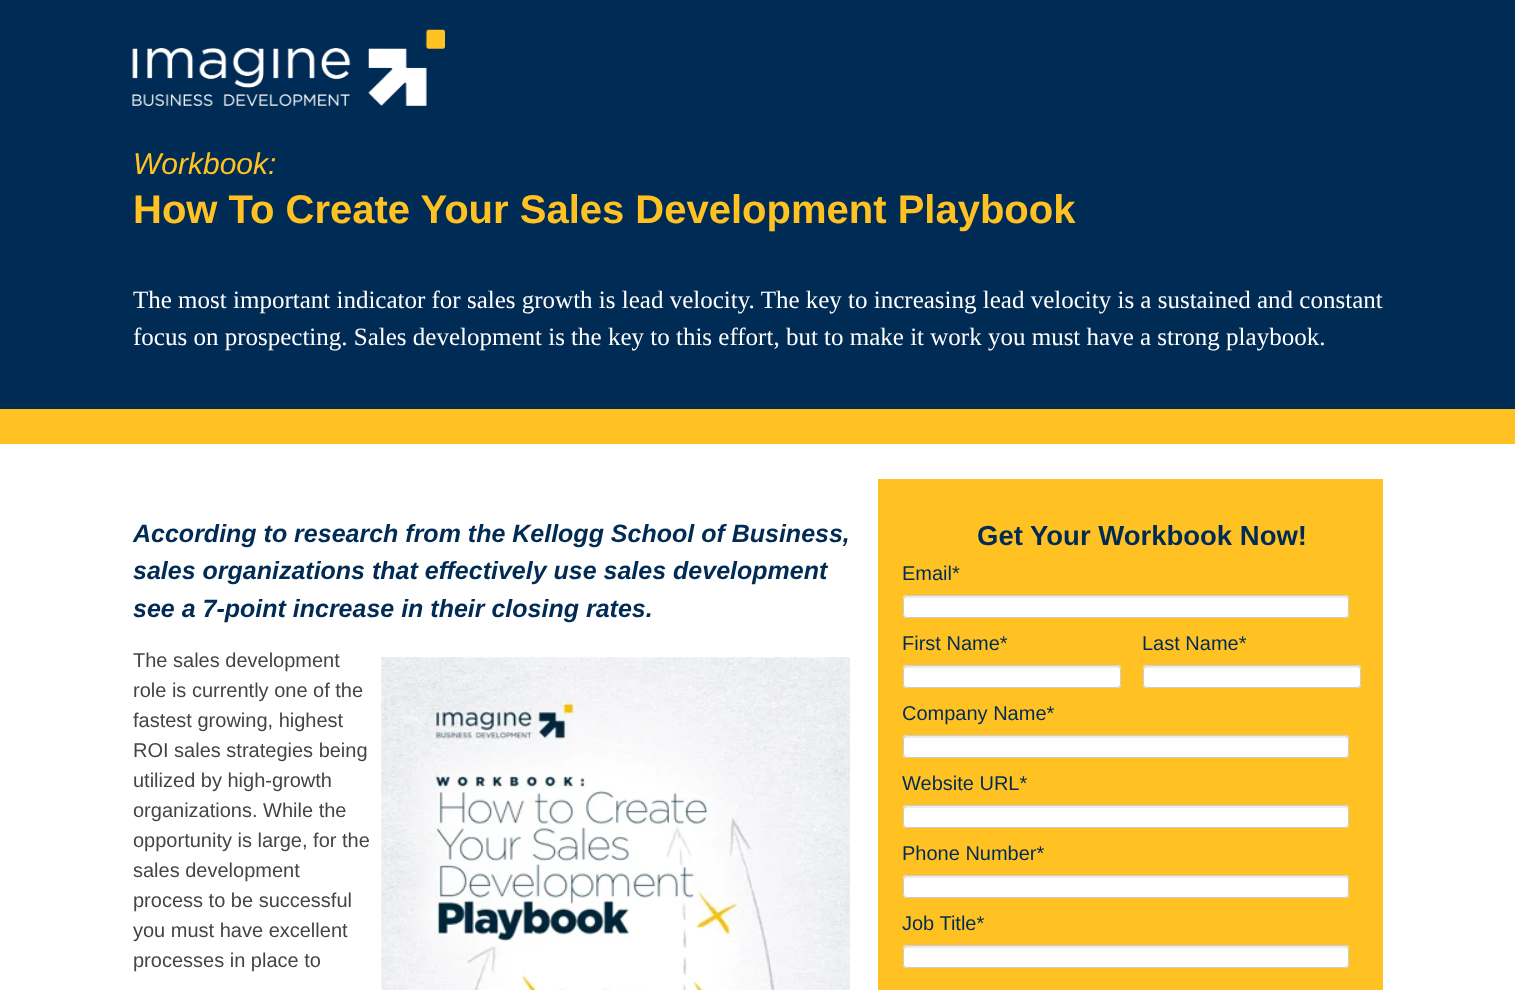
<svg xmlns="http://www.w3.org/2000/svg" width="1515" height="990">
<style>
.a{font:italic 30px Liberation Sans;fill:#ffc222}
.b{font:bold 40px Liberation Sans;fill:#ffc222}
.c{font:25px Liberation Serif;fill:#fff}
.d{font:italic bold 25px Liberation Sans;fill:#002b54}
.e{font:20px Liberation Sans;fill:#444}
.f{font:bold 27.5px Liberation Sans;fill:#002b54}
.g{font:20px Liberation Sans;fill:#002b54}
</style>
<rect width="100%" height="100%" fill="#fff"/>
<path fill="#002b54" d="M0 0h1515v409H0z"/>
<image href="1.png" x="132" y="29" width="313" height="77"/>
<path fill="#ffc222" d="M0 409h1515v35H0z"/>
<image href="2.png" x="381" y="657" width="469" height="333"/>
<path fill="#ffc222" d="M878 479h505v511H878z"/>
<rect fill="#fff" x="903" y="595" width="446" height="23" rx="4"/>
<path fill="#ececec" d="M906 598h439c1 0 3 1 3 2c0-2 0-4-2-4h-440l-2 1v3c0-1 1-2 2-2z"/>
<rect fill="none" stroke="#ccc" x="903.5" y="595.5" width="445" height="22" rx="3.5"/>
<rect fill="#fff" x="903" y="665" width="218" height="23" rx="4"/>
<path fill="#ececec" d="M906 668h212c1 0 2 1 2 2v-2c0-1-1-2-2-2h-212c-1 0-2 1-2 2v2c0-1 1-2 2-2z"/>
<rect fill="none" stroke="#ccc" x="903.5" y="665.5" width="217" height="22" rx="3.5"/>
<rect fill="#fff" x="1143" y="665" width="218" height="23" rx="4"/>
<path fill="#ececec" d="M1146 668h212c1 0 2 1 2 2v-2c0-1-1-2-2-2h-212c-1 0-2 1-2 2v2c0-1 1-2 2-2z"/>
<rect fill="none" stroke="#ccc" x="1143.5" y="665.5" width="217" height="22" rx="3.5"/>
<rect fill="#fff" x="903" y="735" width="446" height="23" rx="4"/>
<path fill="#ececec" d="M906 738h439c1 0 3 1 3 2c0-2 0-4-2-4h-440l-2 1v3c0-1 1-2 2-2z"/>
<rect fill="none" stroke="#ccc" x="903.5" y="735.5" width="445" height="22" rx="3.5"/>
<rect fill="#fff" x="903" y="805" width="446" height="23" rx="4"/>
<path fill="#ececec" d="M906 808h439c1 0 3 1 3 2c0-2 0-4-2-4h-440l-2 1v3c0-1 1-2 2-2z"/>
<rect fill="none" stroke="#ccc" x="903.5" y="805.5" width="445" height="22" rx="3.5"/>
<rect fill="#fff" x="903" y="875" width="446" height="23" rx="4"/>
<path fill="#ececec" d="M906 878h439c1 0 3 1 3 2c0-2 0-4-2-4h-440l-2 1v3c0-1 1-2 2-2z"/>
<rect fill="none" stroke="#ccc" x="903.5" y="875.5" width="445" height="22" rx="3.5"/>
<rect fill="#fff" x="903" y="945" width="446" height="23" rx="4"/>
<path fill="#ececec" d="M906 948h439c1 0 3 1 3 2c0-2 0-4-2-4h-440l-2 1v3c0-1 1-2 2-2z"/>
<rect fill="none" stroke="#ccc" x="903.5" y="945.5" width="445" height="22" rx="3.5"/>
<text class="a" x="133" y="174">Workbook:</text>
<text class="b" x="133" y="223">How To Create Your Sales Development Playbook</text>
<text class="c" x="133" y="308">The most important indicator for sales growth is lead velocity. The key to increasing lead velocity is a sustained and constant</text>
<text class="c" x="133" y="345">focus on prospecting. Sales development is the key to this effort, but to make it work you must have a strong playbook.</text>
<text class="d" x="133" y="542">According to research from the Kellogg School of Business,</text>
<text class="d" x="133" y="579">sales organizations that effectively use sales development</text>
<text class="d" x="133" y="617">see a 7-point increase in their closing rates.</text>
<text class="e" x="133" y="667">The sales development</text>
<text class="e" x="133" y="697">role is currently one of the</text>
<text class="e" x="133" y="727">fastest growing, highest</text>
<text class="e" x="133" y="757">ROI sales strategies being</text>
<text class="e" x="133" y="787">utilized by high-growth</text>
<text class="e" x="133" y="817">organizations. While the</text>
<text class="e" x="133" y="847">opportunity is large, for the</text>
<text class="e" x="133" y="877">sales development</text>
<text class="e" x="133" y="907">process to be successful</text>
<text class="e" x="133" y="937">you must have excellent</text>
<text class="e" x="133" y="967">processes in place to</text>
<text class="f" x="977" y="545">Get Your Workbook Now!</text>
<text class="g" x="902" y="580">Email*</text>
<text class="g" x="902" y="650">First Name*</text>
<text class="g" x="1142" y="650">Last Name*</text>
<text class="g" x="902" y="720">Company Name*</text>
<text class="g" x="902" y="790">Website URL*</text>
<text class="g" x="902" y="860">Phone Number*</text>
<text class="g" x="902" y="930">Job Title*</text>
</svg>
